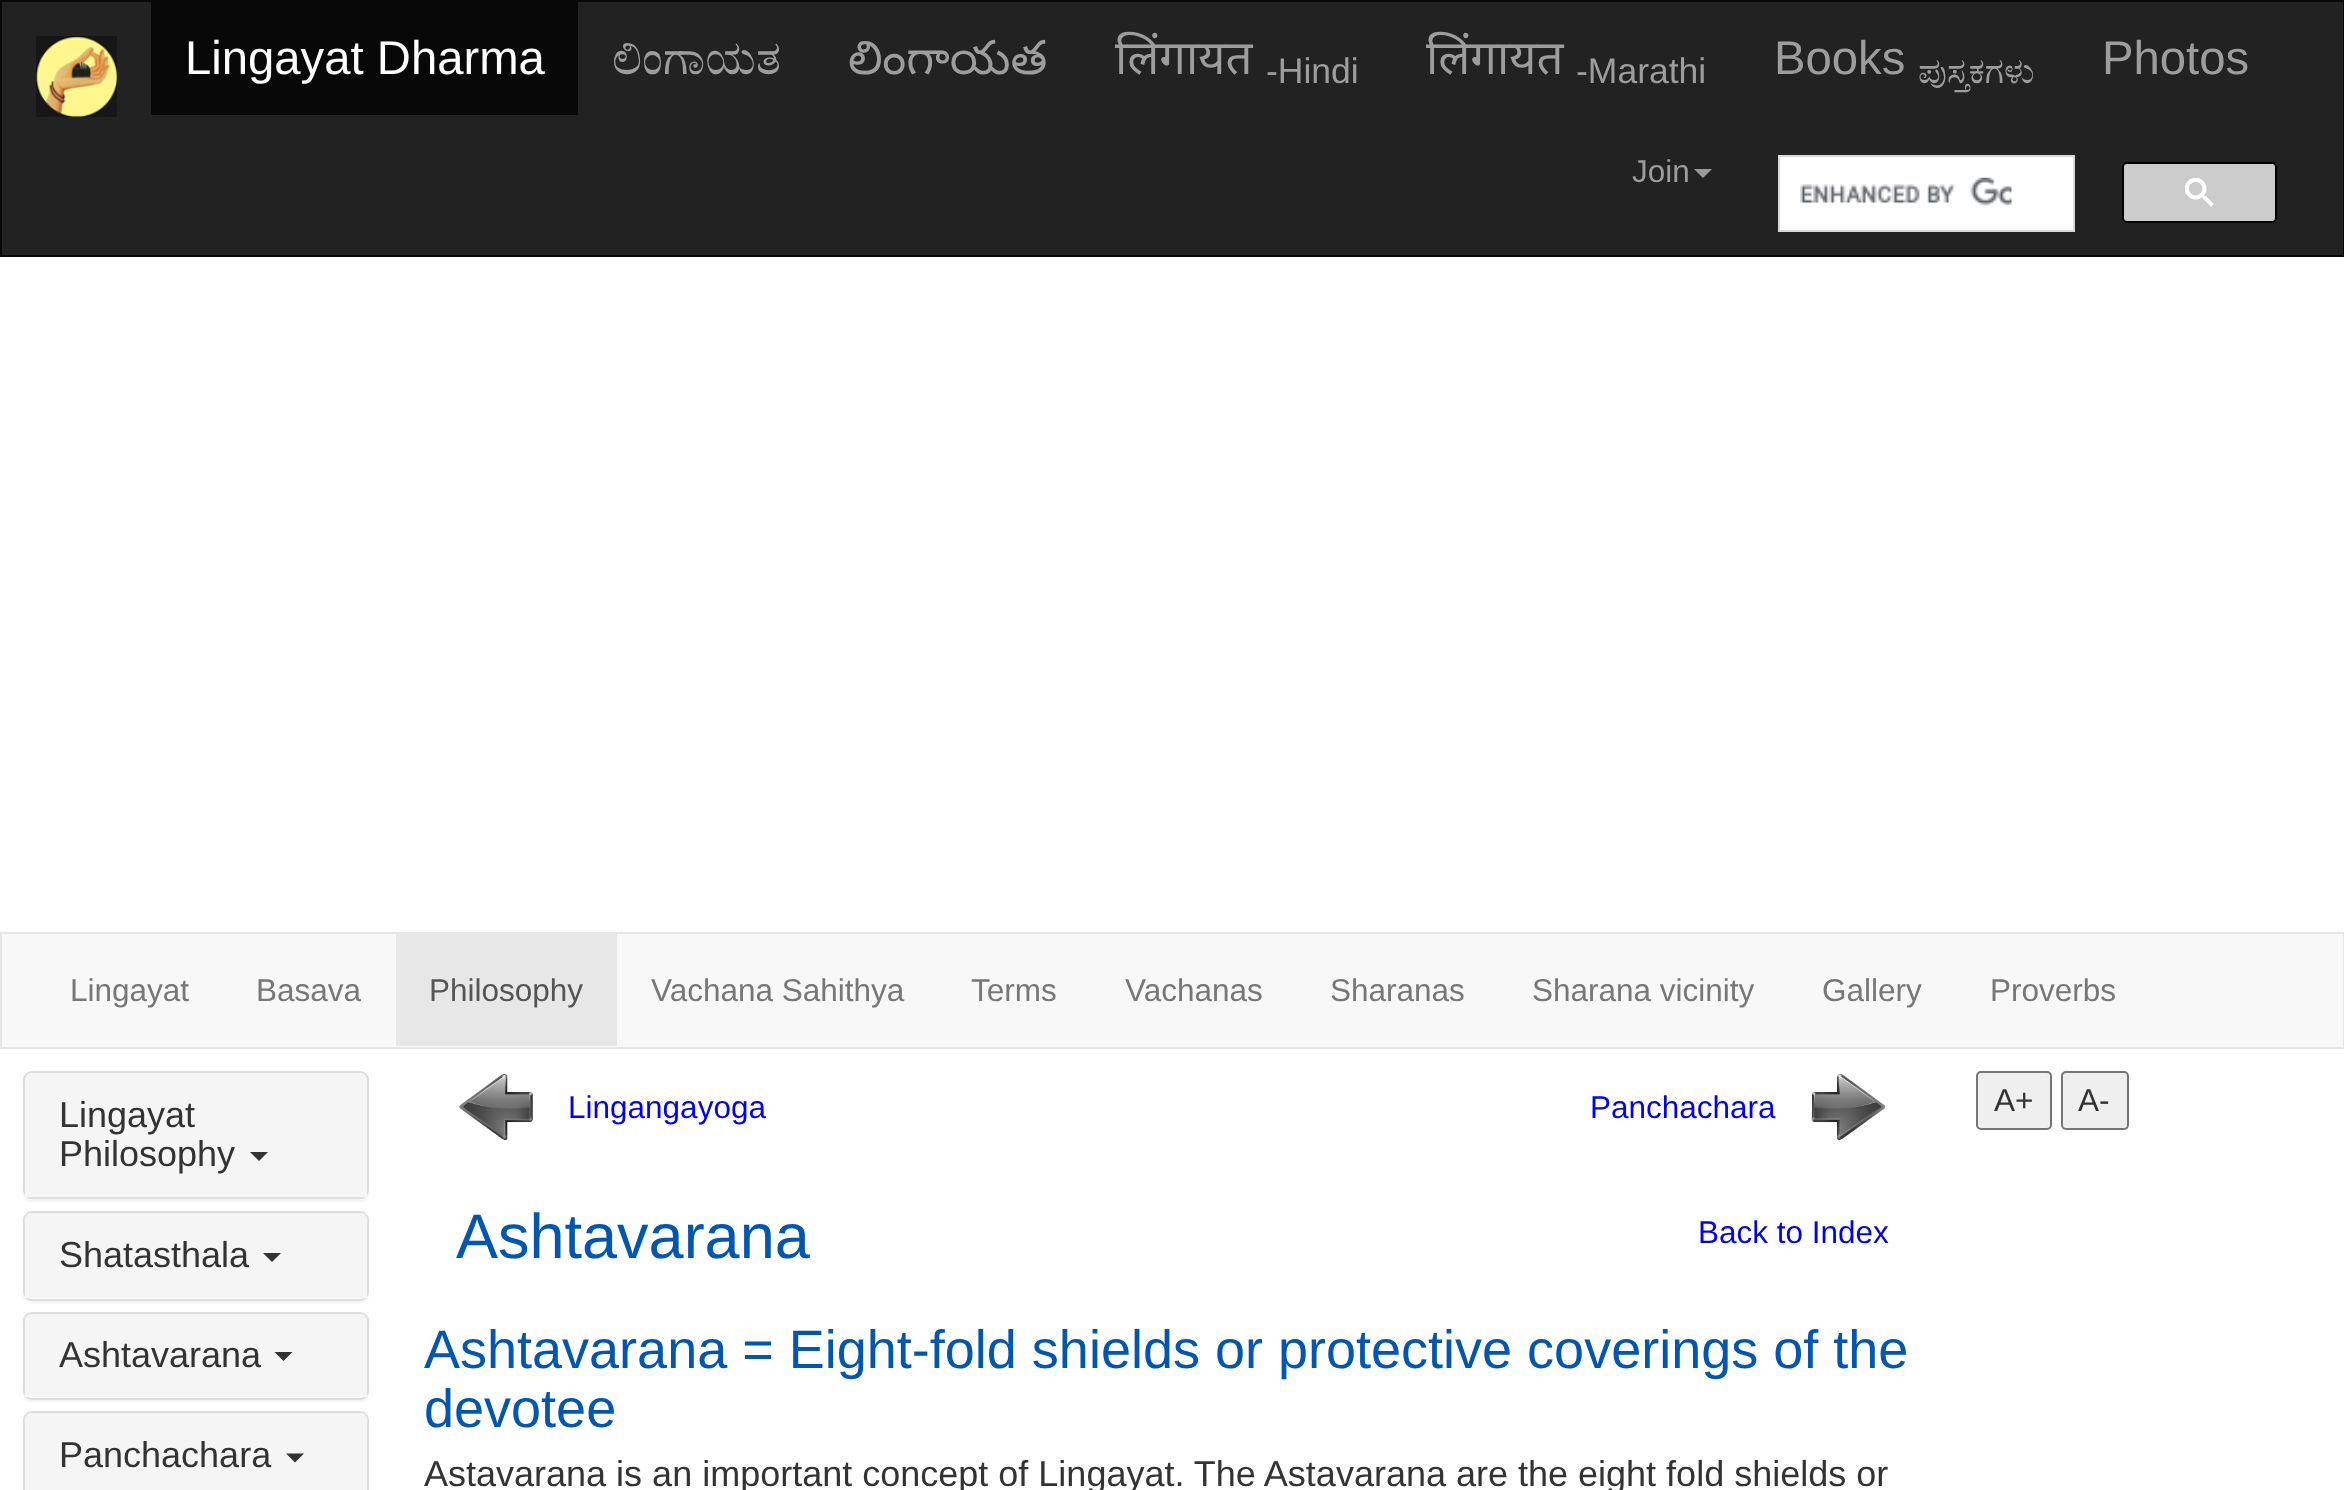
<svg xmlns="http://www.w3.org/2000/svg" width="2344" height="1490">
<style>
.a{font:47.25px Liberation Sans;fill:#fff}
.b{font:47.25px FreeSerif;fill:#9d9d9d}
.c{font:47.25px Noto Sans Telugu;fill:#9d9d9d}
.d{font:47.25px Noto Sans;fill:#9d9d9d}
.e{font:35.5px Liberation Sans;fill:#9d9d9d}
.f{font:47.25px Liberation Sans;fill:#9d9d9d}
.g{font:35.5px FreeSerif;fill:#9d9d9d}
.h{font:31.5px Liberation Sans;fill:#9d9d9d}
.i{font:31.5px Liberation Sans;fill:#777}
.j{font:31.5px Liberation Sans;fill:#555}
.k{font:36px Liberation Sans;fill:#333}
.l{font:31.5px Liberation Sans;fill:#00f}
.m{font:63px Liberation Sans;fill:#0056b3}
.n{font:54px Liberation Sans;fill:#0056b3}
.o{font:31.5px Liberation Sans;fill:#333}
</style>
<rect width="100%" height="100%" fill="#fff"/>
<path fill="#222" stroke="#080808" stroke-width="2" d="M1 1h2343v255H1z"/>
<image href="1.png" x="36" y="36" width="81" height="81"/>
<path fill="#080808" d="M151 2h427v113H151z"/>
<path fill="#999" d="M1694 169h18l-9 9z"/>
<path fill="#fff" stroke="#d9d9d9" stroke-width="2" d="M1779 156h295v75H1779z"/>
<image href="2.png" x="1800" y="177" width="212" height="29"/>
<rect fill="#ccc" stroke="#000" stroke-width="2" x="2123" y="163" width="153" height="59" rx="4"/>
<image href="3.png" x="2185" y="178" width="29" height="29"/>
<path fill="#f8f8f8" stroke="#e7e7e7" stroke-width="2" d="M1 933h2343v115H1z"/>
<path fill="#e7e7e7" d="M396 934h221v112H396z"/>
<rect fill="#0000000d" filter="blur(1px)" x="23" y="1073" width="346" height="129" rx="9"/>
<rect fill="none" stroke="#ddd" stroke-width="2" x="24" y="1072" width="344" height="126" rx="8"/>
<path fill="#f5f5f5" d="M32 1073h328c4 0 7 3 7 7v117h-342v-117c0-4 3-7 7-7z"/>
<path fill="#333" d="M250 1152h18l-9 9z"/>
<rect fill="#0000000d" filter="blur(1px)" x="23" y="1213" width="346" height="90" rx="9"/>
<rect fill="#fff" stroke="#ddd" stroke-width="2" x="24" y="1212" width="344" height="88" rx="8"/>
<path fill="#f5f5f5" d="M32 1213h328c4 0 7 3 7 7v78h-342v-78c0-4 3-7 7-7z"/>
<path fill="#333" d="M263 1253h18l-9 9z"/>
<rect fill="#0000000d" filter="blur(1px)" x="23" y="1314" width="346" height="88" rx="9"/>
<rect fill="#fff" stroke="#ddd" stroke-width="2" x="24" y="1313" width="344" height="86" rx="8"/>
<path fill="#f5f5f5" d="M32 1314h328c4 0 7 3 7 7v76h-342v-76c0-4 3-7 7-7z"/>
<path fill="#333" d="M274.5 1352h18l-9 9z"/>
<rect fill="none" stroke="#ddd" stroke-width="2" x="24" y="1412" width="344" height="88" rx="8"/>
<path fill="#f5f5f5" d="M32 1413h328c4 0 7 3 7 7v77h-342v-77c0-4 3-7 7-7z"/>
<path fill="#333" d="M286 1453.5h18l-9 9z"/>
<image href="4.png" x="459" y="1074" width="74" height="67"/>
<image href="5.png" x="1811" y="1074" width="75" height="67"/>
<rect fill="#efefef" stroke="#767676" stroke-width="2" x="1977" y="1072" width="74" height="57" rx="4"/>
<rect fill="#efefef" stroke="#767676" stroke-width="2" x="2062" y="1072" width="66" height="57" rx="4"/>
<text class="a" x="185" y="74">Lingayat Dharma</text>
<text class="b" x="612" y="74">ಲಿಂಗಾಯತ</text>
<text class="c" x="848" y="74">లింగాయత</text>
<text class="d" x="1115" y="74">लिंगायत</text>
<text class="e" x="1266" y="83">-Hindi</text>
<text class="d" x="1426" y="74">लिंगायत</text>
<text class="e" x="1576" y="83">-Marathi</text>
<text class="f" x="1774" y="74">Books</text>
<text class="g" x="1918" y="83">ಪುಸ್ತಕಗಳು</text>
<text class="f" x="2102" y="74">Photos</text>
<text class="h" x="1632" y="182">Join</text>
<text class="i" x="70" y="1001">Lingayat</text>
<text class="i" x="256" y="1001">Basava</text>
<text class="j" x="429" y="1001">Philosophy</text>
<text class="i" x="651" y="1001">Vachana Sahithya</text>
<text class="i" x="971" y="1001">Terms</text>
<text class="i" x="1125" y="1001">Vachanas</text>
<text class="i" x="1330" y="1001">Sharanas</text>
<text class="i" x="1532" y="1001">Sharana vicinity</text>
<text class="i" x="1822" y="1001">Gallery</text>
<text class="i" x="1990" y="1001">Proverbs</text>
<text class="k" x="59" y="1127">Lingayat</text>
<text class="k" x="59" y="1166">Philosophy</text>
<text class="k" x="59" y="1267">Shatasthala</text>
<text class="k" x="59" y="1367">Ashtavarana</text>
<text class="k" x="59" y="1467">Panchachara</text>
<text class="l" x="568" y="1118">Lingangayoga</text>
<text class="l" x="1590" y="1118">Panchachara</text>
<text class="m" x="456" y="1258">Ashtavarana</text>
<text class="l" x="1698" y="1243">Back to Index</text>
<text class="n" x="424" y="1368">Ashtavarana = Eight-fold shields or protective coverings of the</text>
<text class="n" x="424" y="1427">devotee</text>
<text class="k" x="424" y="1486">Astavarana is an important concept of Lingayat. The Astavarana are the eight fold shields or</text>
<text class="o" x="1994" y="1111">A+</text>
<text class="o" x="2078" y="1111">A-</text>
</svg>
